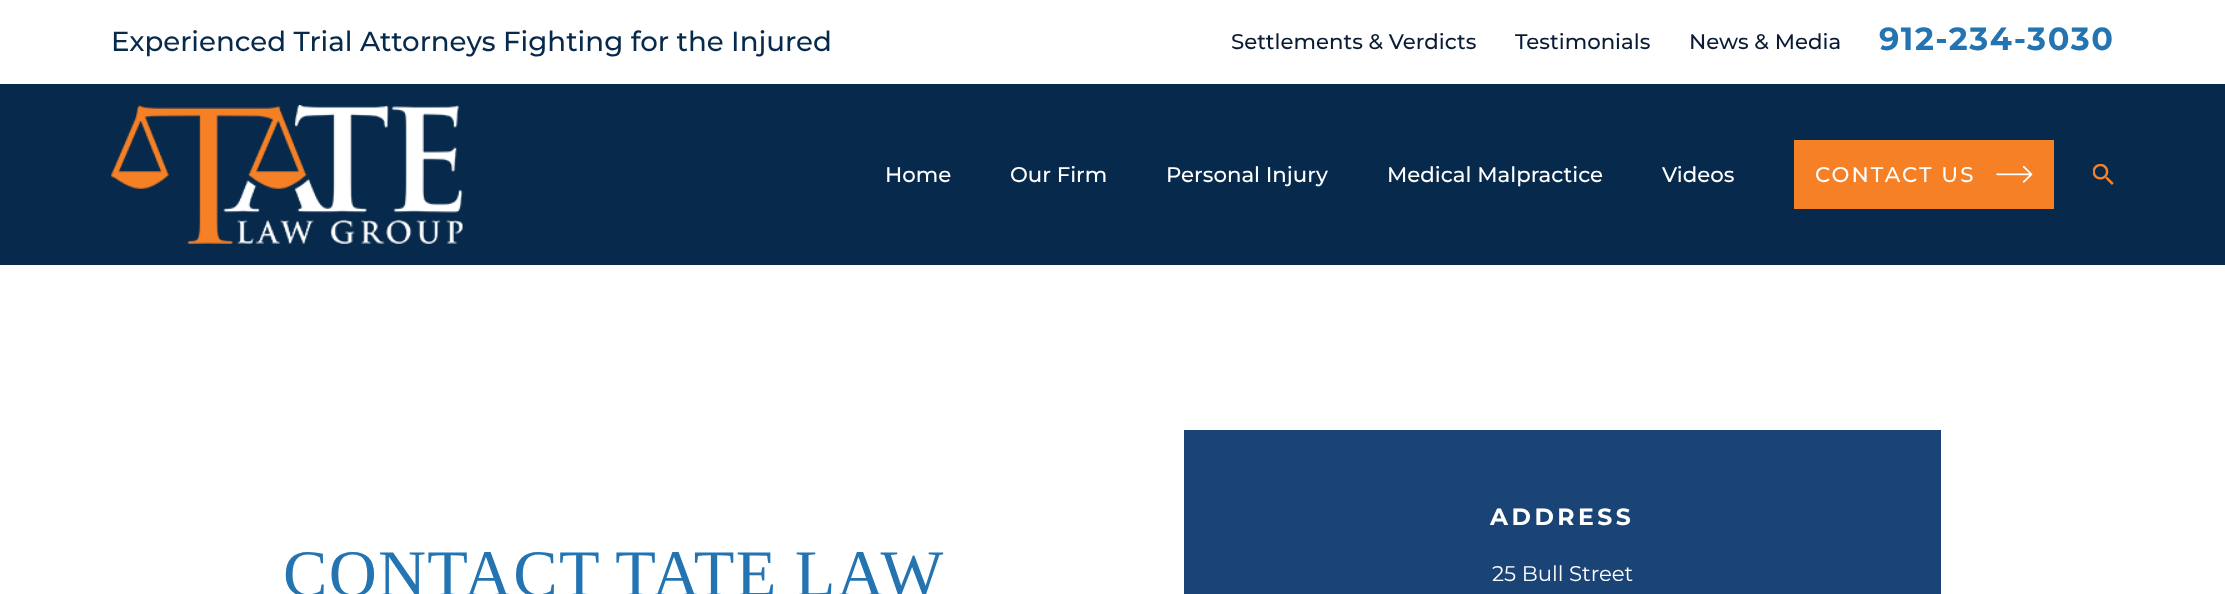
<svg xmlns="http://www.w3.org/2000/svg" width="2225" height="594">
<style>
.a{font:500 27.65px Montserrat;fill:#072a4c}
.b{font:500 21.25px Montserrat;fill:#0a1c35}
.c{font:bold 32px Montserrat;letter-spacing:1.6px;fill:#2574b2}
.d{font:500 21.25px Montserrat;fill:#fff}
.e{font:500 21.25px Montserrat;letter-spacing:2.1px;fill:#fff}
.f{font:66.5px Liberation Serif;letter-spacing:1.3px;fill:#2574b2}
.g{font:bold 23.5px Montserrat;letter-spacing:3.5px;fill:#fff}
.h{font:21.25px Montserrat;fill:#fff}
</style>
<rect width="100%" height="100%" fill="#fff"/>
<path fill="#072a4c" d="M0 84h2225v181H0z"/>
<image href="1.png" x="111" y="105" width="352" height="139"/>
<path fill="#f58026" d="M1794 140h260v69H1794z"/>
<image href="2.png" x="1996" y="165" width="37" height="18"/>
<image href="3.png" x="2093" y="164" width="21" height="21"/>
<path fill="#1a4476" d="M1184 430h757v164H1184z"/>
<text class="a" x="111" y="51">Experienced Trial Attorneys Fighting for the Injured</text>
<text class="b" x="1231" y="49">Settlements &amp; Verdicts</text>
<text class="b" x="1515" y="49">Testimonials</text>
<text class="b" x="1689" y="49">News &amp; Media</text>
<text class="c" x="1879" y="50">912-234-3030</text>
<text class="d" x="885" y="182">Home</text>
<text class="d" x="1010" y="182">Our Firm</text>
<text class="d" x="1166" y="182">Personal Injury</text>
<text class="d" x="1387" y="182">Medical Malpractice</text>
<text class="d" x="1662" y="182">Videos</text>
<text class="e" x="1815" y="182">CONTACT US</text>
<text class="f" x="283" y="596" word-spacing="-1">CONTACT TATE LAW</text>
<text class="g" x="1490" y="525">ADDRESS</text>
<text class="h" x="1492" y="581">25 Bull Street</text>
</svg>
